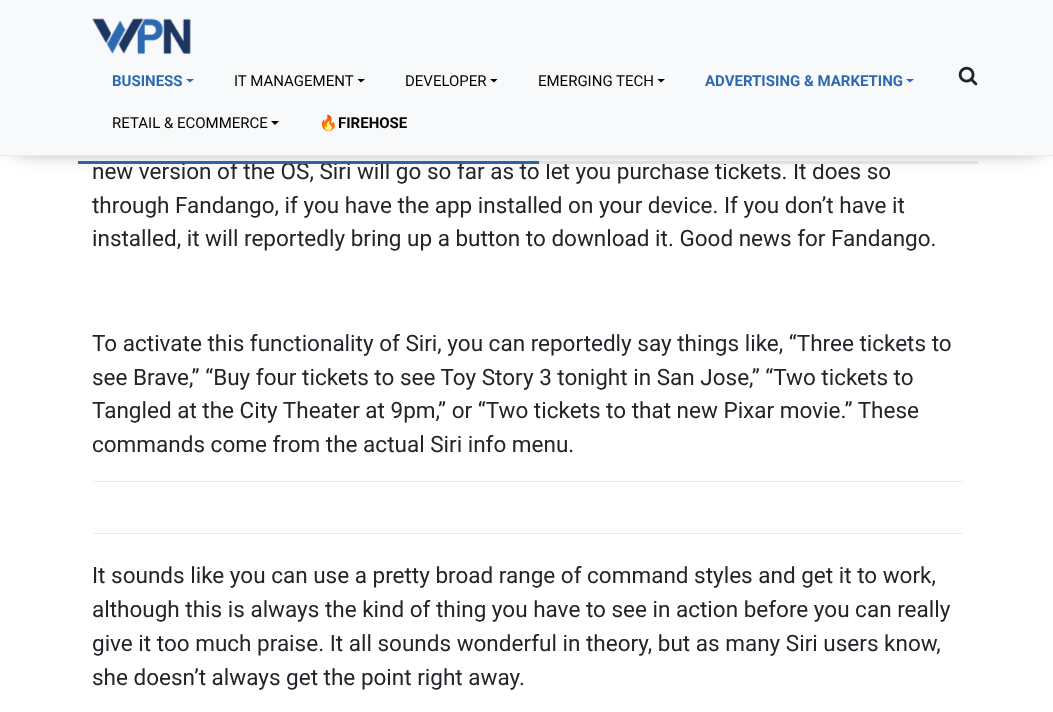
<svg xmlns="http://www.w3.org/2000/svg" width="1053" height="712">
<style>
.a{font:22.5px Roboto;fill:#212529}
.b{font:bold 15px Roboto;fill:#000}
.c{font:bold 15px Noto Color Emoji;fill:#000}
.d{font:15px Roboto;fill:#000}
.e{font:bold 15px Roboto;fill:#2d69b0}
</style>
<rect width="100%" height="100%" fill="#fff"/>
<path fill="#ececec" d="M93 481h870v1H93z"/>
<path fill="#ececec" d="M93 533h870v1H93z"/>
<text class="a" x="92" y="179">new version of the OS, Siri will go so far as to let you purchase tickets. It does so</text>
<path fill="#2d69b0" d="M78 161h461v3H78z"/>
<path fill="#ececec" d="M539 161h439v3H539z"/>
<path fill="#000" filter="blur(12.5px)" d="M16 15h1024v128H16z"/>
<path fill="#f8f9fa" d="M0 0h1053v155H0z"/>
<text class="b" x="338" y="128">FIREHOSE</text>
<text class="c" x="319" y="128">🔥</text>
<path fill="#000" d="M271 121h8l-4 4z"/>
<text class="d" x="112" y="128">RETAIL &amp; ECOMMERCE</text>
<path fill="#2d69b0" d="M906 79h8l-4 3.5z"/>
<text class="e" x="705" y="86">ADVERTISING &amp; MARKETING</text>
<path fill="#000" d="M657.5 79h7.5l-4 3.5z"/>
<text class="d" x="538" y="86">EMERGING TECH</text>
<path fill="#000" d="M490 79h7.5l-3.5 3.5z"/>
<text class="d" x="405" y="86">DEVELOPER</text>
<path fill="#000" d="M357.5 79h7.5l-4 3.5z"/>
<text class="d" x="234" y="86">IT MANAGEMENT</text>
<path fill="#2d69b0" d="M186 79h8l-4 3.5z"/>
<text class="e" x="112" y="86">BUSINESS</text>
<image href="2.png" x="958" y="66" width="20" height="20"/>
<image href="1.png" x="92" y="18" width="99" height="36"/>
<path fill="#ececec" d="M0 155h1053v1H0z"/>
<text class="a" x="92" y="213">through Fandango, if you have the app installed on your device. If you don’t have it</text>
<text class="a" x="92" y="246">installed, it will reportedly bring up a button to download it. Good news for Fandango.</text>
<text class="a" x="92" y="351">To activate this functionality of Siri, you can reportedly say things like, “Three tickets to</text>
<text class="a" x="92" y="385">see Brave,” “Buy four tickets to see Toy Story 3 tonight in San Jose,” “Two tickets to</text>
<text class="a" x="92" y="418">Tangled at the City Theater at 9pm,” or “Two tickets to that new Pixar movie.” These</text>
<text class="a" x="92" y="452">commands come from the actual Siri info menu.</text>
<text class="a" x="92" y="583">It sounds like you can use a pretty broad range of command styles and get it to work,</text>
<text class="a" x="92" y="617">although this is always the kind of thing you have to see in action before you can really</text>
<text class="a" x="92" y="651">give it too much praise. It all sounds wonderful in theory, but as many Siri users know,</text>
<text class="a" x="92" y="685">she doesn’t always get the point right away.</text>
</svg>
